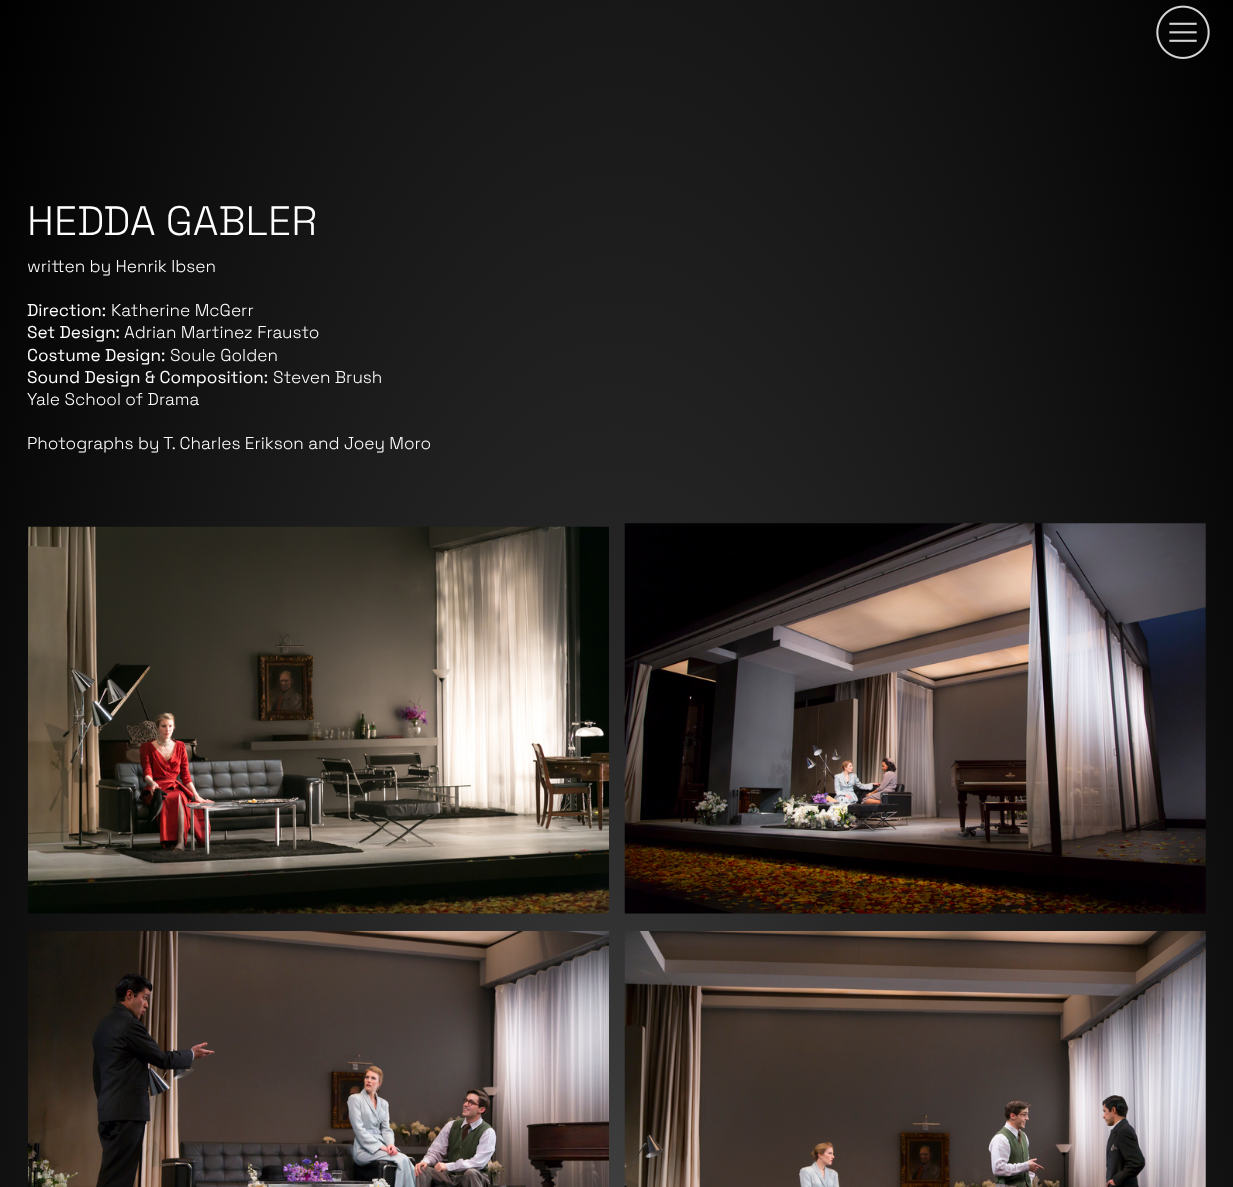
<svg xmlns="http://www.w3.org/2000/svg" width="1233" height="1187">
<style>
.a{font:300 41px Space Grotesk;fill:#fff}
.b{font:300 17.1px Space Grotesk;fill:#fff}
.c{font:17.1px Space Grotesk;fill:#fff}
</style>
<defs>
<radialGradient id="g1" gradientUnits="userSpaceOnUse" cx="0" cy="0" r="1" gradientTransform="matrix(872 0 0 3399 617 2404)"><stop offset="0" stop-color="#767575"/><stop offset="0.5" stop-color="#282828"/><stop offset="1" stop-color="#000"/></radialGradient>
</defs>
<rect width="100%" height="100%" fill="#fff"/>
<path fill="url(#g1)" d="M0 0h1233v1187H0z"/>
<image href="1.png" x="1156" y="5" width="54" height="54"/>
<image href="2.png" x="28" y="526" width="581" height="388"/>
<image href="3.png" x="624" y="523" width="582" height="391"/>
<image href="4.png" x="28" y="931" width="581" height="256"/>
<image href="5.png" x="624" y="931" width="582" height="256"/>
<text class="a" x="27" y="235">HEDDA GABLER</text>
<text class="b" x="27" y="272">written by Henrik Ibsen</text>
<text class="c" x="27" y="316">Direction:</text>
<text class="b" x="111" y="316">Katherine McGerr</text>
<text class="c" x="27" y="338">Set Design:</text>
<text class="b" x="124" y="338">Adrian Martinez Frausto</text>
<text class="c" x="27" y="361">Costume Design:</text>
<text class="b" x="170" y="361">Soule Golden</text>
<text class="c" x="27" y="383">Sound Design &amp; Composition:</text>
<text class="b" x="273" y="383">Steven Brush</text>
<text class="b" x="27" y="405">Yale School of Drama</text>
<text class="b" x="27" y="449">Photographs by T. Charles Erikson and</text>
<text class="b" x="344" y="449">Joey Moro</text>
</svg>
